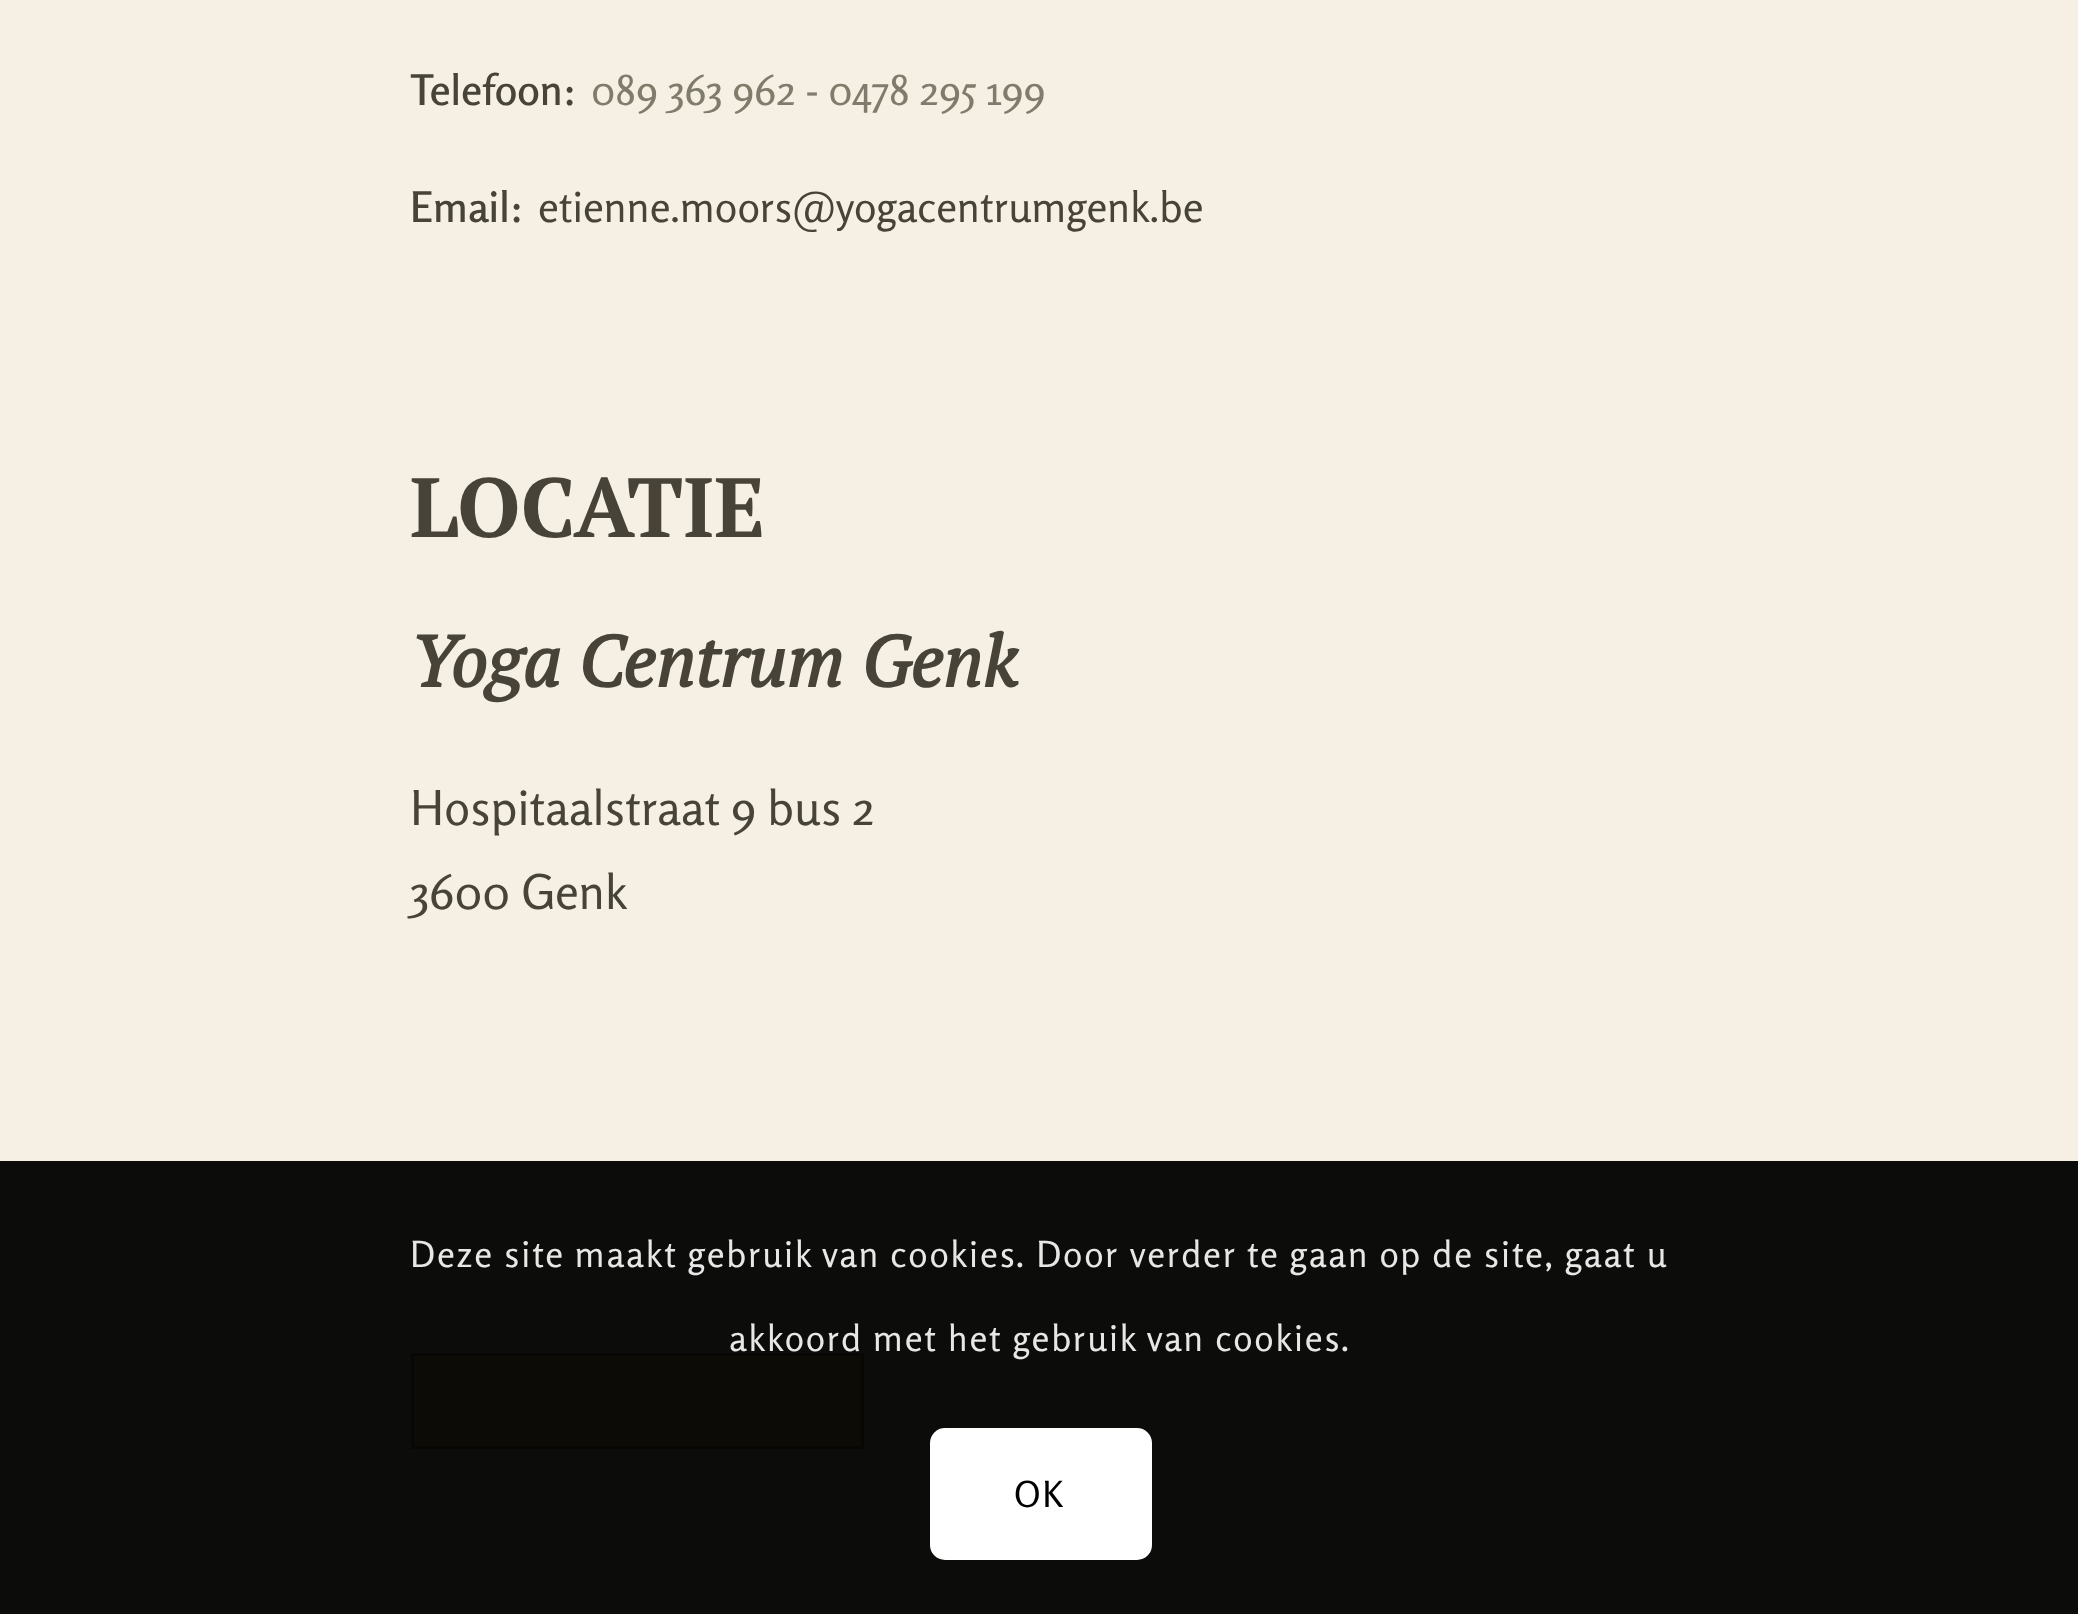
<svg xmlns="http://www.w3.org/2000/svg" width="2078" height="1614">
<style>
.a{font:600 42px Rosario;fill:#484338}
.b{font:42px Rosario;fill:#807c6c}
.c{font:42px Rosario;fill:#484338}
.d{font:bold 84px PT Serif;fill:#484338}
.e{font:italic bold 72px PT Serif;fill:#484338}
.f{font:48px Rosario;fill:#484338}
.g{font:36px Rosario;letter-spacing:1.8px;fill:#e7e7e7}
.h{font:36px Rosario;letter-spacing:1.8px;fill:#000}
</style>
<rect width="100%" height="100%" fill="#f5f0e3"/>
<path fill="#0c0c0b" d="M0 1161h2078v453H0z"/>
<path fill="#0d0b05" stroke="#080704" stroke-width="3" d="M412.5 1354.5h450v93H412.5z"/>
<rect fill="#fff" x="930" y="1428" width="222" height="132" rx="15"/>
<text class="a" x="410" y="105">Telefoon:</text>
<text class="b" x="591" y="105">089 363 962 - 0478 295 199</text>
<text class="a" x="410" y="222">Email:</text>
<text class="c" x="538" y="222">etienne.moors@yogacentrumgenk.be</text>
<text class="d" x="410" y="537">LOCATIE</text>
<text class="e" x="410" y="687">Yoga Centrum Genk</text>
<text class="f" x="410" y="825">Hospitaalstraat 9 bus 2</text>
<text class="f" x="410" y="909">3600 Genk</text>
<text class="g" x="410" y="1267">Deze site maakt gebruik van cookies. Door verder te gaan op de site, gaat u</text>
<text class="g" x="729" y="1351">akkoord met het gebruik van cookies.</text>
<text class="h" x="1014" y="1507">OK</text>
</svg>
